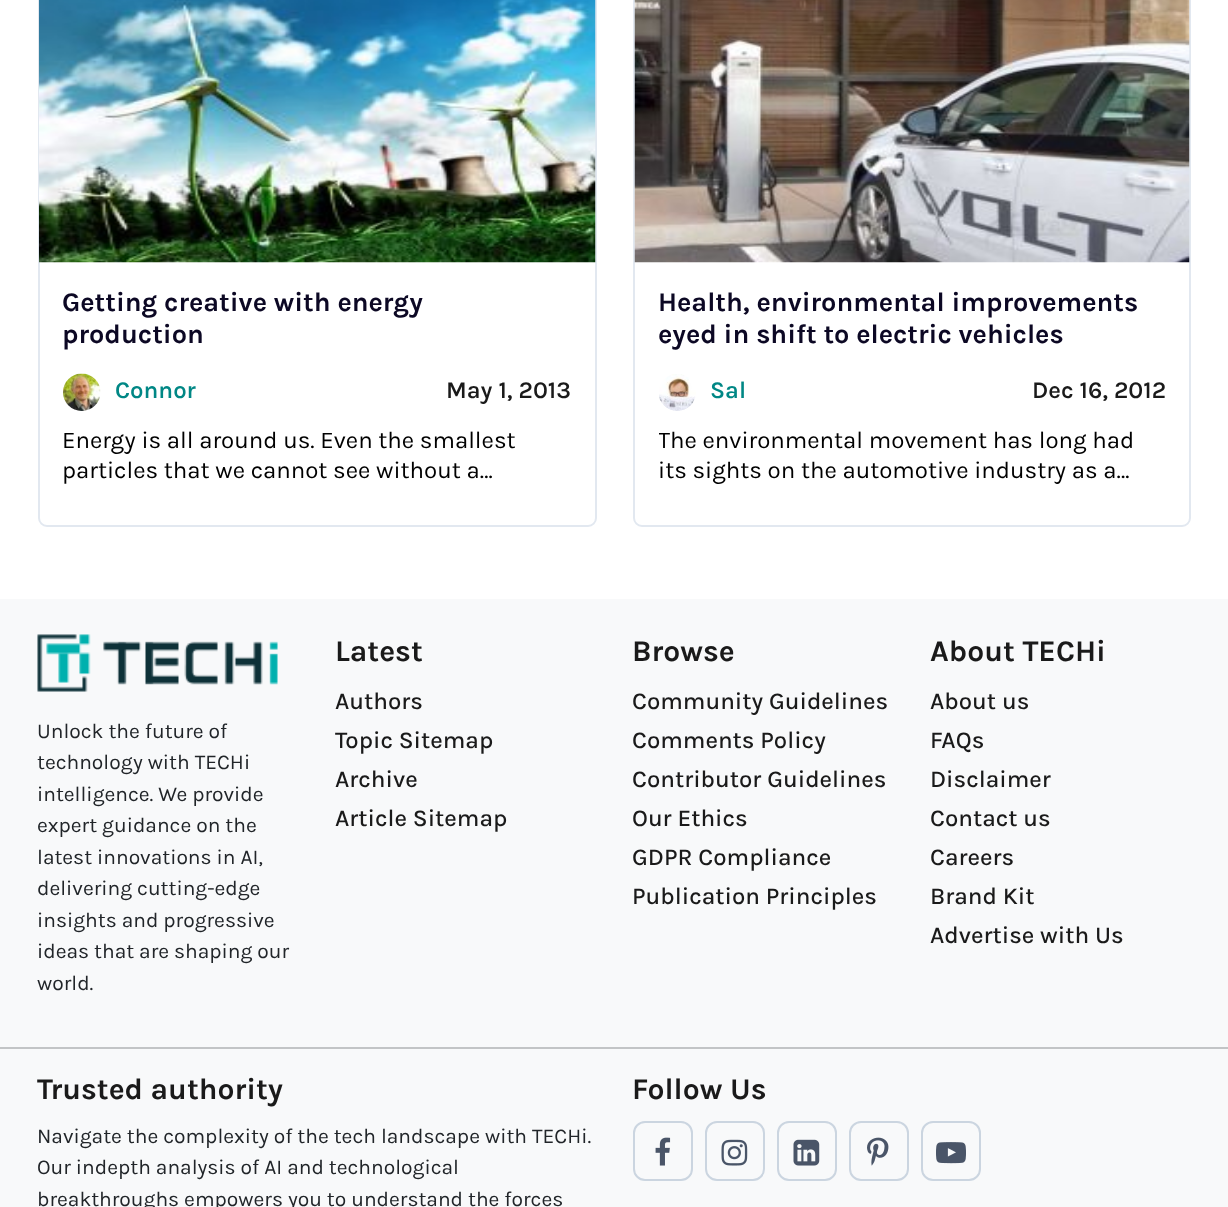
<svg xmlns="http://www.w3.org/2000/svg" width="1228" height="1207">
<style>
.a{font:bold 27px Karla;fill:#0c0824}
.b{font:600 24px Karla;fill:#008785}
.c{font:600 24px Karla;fill:#1a1a1a}
.d{font:24px Karla;fill:#000}
.e{font:21px Karla;fill:#212529}
.f{font:bold 30px Karla;fill:#1a1a1a}
.g{font:500 24px Karla;fill:#1a1a1a}
</style>
<defs>
<clipPath id="clip1"><path d="M659 426h507v60H659z"/></clipPath>
</defs>
<rect width="100%" height="100%" fill="#fff"/>
<rect fill="none" stroke="#e2e8f0" stroke-width="2" x="39" y="-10" width="557" height="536" rx="8"/>
<image href="1.png" x="39" y="0" width="557" height="263"/>
<image href="2.png" x="63" y="373" width="38" height="38"/>
<rect fill="none" stroke="#e2e8f0" stroke-width="2" x="634" y="-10" width="556" height="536" rx="8"/>
<image href="3.png" x="634" y="0" width="556" height="263"/>
<image href="4.png" x="659" y="374" width="37" height="37"/>
<path fill="#f8f9fa" d="M0 599h1228v608H0z"/>
<image href="5.png" x="37" y="634" width="241" height="58"/>
<path fill="#c2c4c6" d="M0 1047h1228v2H0z"/>
<rect fill="none" stroke="#cbd5e0" stroke-width="2" x="634" y="1122" width="58" height="58" rx="11"/>
<image href="6.png" x="655" y="1137" width="16" height="29"/>
<rect fill="none" stroke="#cbd5e0" stroke-width="2" x="706" y="1122" width="58" height="58" rx="11"/>
<image href="7.png" x="721" y="1139" width="27" height="27"/>
<rect fill="none" stroke="#cbd5e0" stroke-width="2" x="778" y="1122" width="58" height="58" rx="11"/>
<image href="8.png" x="793" y="1139" width="27" height="27"/>
<rect fill="none" stroke="#cbd5e0" stroke-width="2" x="850" y="1122" width="58" height="58" rx="11"/>
<image href="9.png" x="867" y="1137" width="22" height="29"/>
<rect fill="none" stroke="#cbd5e0" stroke-width="2" x="922" y="1122" width="58" height="58" rx="11"/>
<image href="10.png" x="936" y="1142" width="30" height="22"/>
<text class="a" x="62" y="311">Getting creative with energy</text>
<text class="a" x="62" y="343">production</text>
<text class="b" x="115" y="398">Connor</text>
<text class="c" x="446" y="398">May 1, 2013</text>
<text class="d" x="62" y="448">Energy is all around us. Even the smallest</text>
<text class="d" x="62" y="478">particles that we cannot see without a…</text>
<text class="a" x="658" y="311">Health, environmental improvements</text>
<text class="a" x="658" y="343">eyed in shift to electric vehicles</text>
<text class="b" x="710" y="398">Sal</text>
<text class="c" x="1032" y="398">Dec 16, 2012</text>
<g clip-path="url(#clip1)">
<text class="d" x="658" y="448">The environmental movement has long had</text>
</g>
<text class="d" x="658" y="478">its sights on the automotive industry as a…</text>
<text class="e" x="37" y="738">Unlock the future of</text>
<text class="e" x="37" y="769">technology with TECHi</text>
<text class="e" x="37" y="801">intelligence. We provide</text>
<text class="e" x="37" y="832">expert guidance on the</text>
<text class="e" x="37" y="864">latest innovations in AI,</text>
<text class="e" x="37" y="895">delivering cutting-edge</text>
<text class="e" x="37" y="927">insights and progressive</text>
<text class="e" x="37" y="958">ideas that are shaping our</text>
<text class="e" x="37" y="990">world.</text>
<text class="f" x="335" y="661">Latest</text>
<text class="g" x="335" y="709">Authors</text>
<text class="g" x="335" y="748">Topic Sitemap</text>
<text class="g" x="335" y="787">Archive</text>
<text class="g" x="335" y="826">Article Sitemap</text>
<text class="f" x="632" y="661">Browse</text>
<text class="g" x="632" y="709">Community Guidelines</text>
<text class="g" x="632" y="748">Comments Policy</text>
<text class="g" x="632" y="787">Contributor Guidelines</text>
<text class="g" x="632" y="826">Our Ethics</text>
<text class="g" x="632" y="865">GDPR Compliance</text>
<text class="g" x="632" y="904">Publication Principles</text>
<text class="f" x="930" y="661">About TECHi</text>
<text class="g" x="930" y="709">About us</text>
<text class="g" x="930" y="748">FAQs</text>
<text class="g" x="930" y="787">Disclaimer</text>
<text class="g" x="930" y="826">Contact us</text>
<text class="g" x="930" y="865">Careers</text>
<text class="g" x="930" y="904">Brand Kit</text>
<text class="g" x="930" y="943">Advertise with Us</text>
<text class="f" x="37" y="1099">Trusted authority</text>
<text class="e" x="37" y="1143">Navigate the complexity of the tech landscape with TECHi.</text>
<text class="e" x="37" y="1174">Our indepth analysis of AI and technological</text>
<text class="e" x="37" y="1206">breakthroughs empowers you to understand the forces</text>
<text class="f" x="632" y="1099">Follow Us</text>
</svg>
